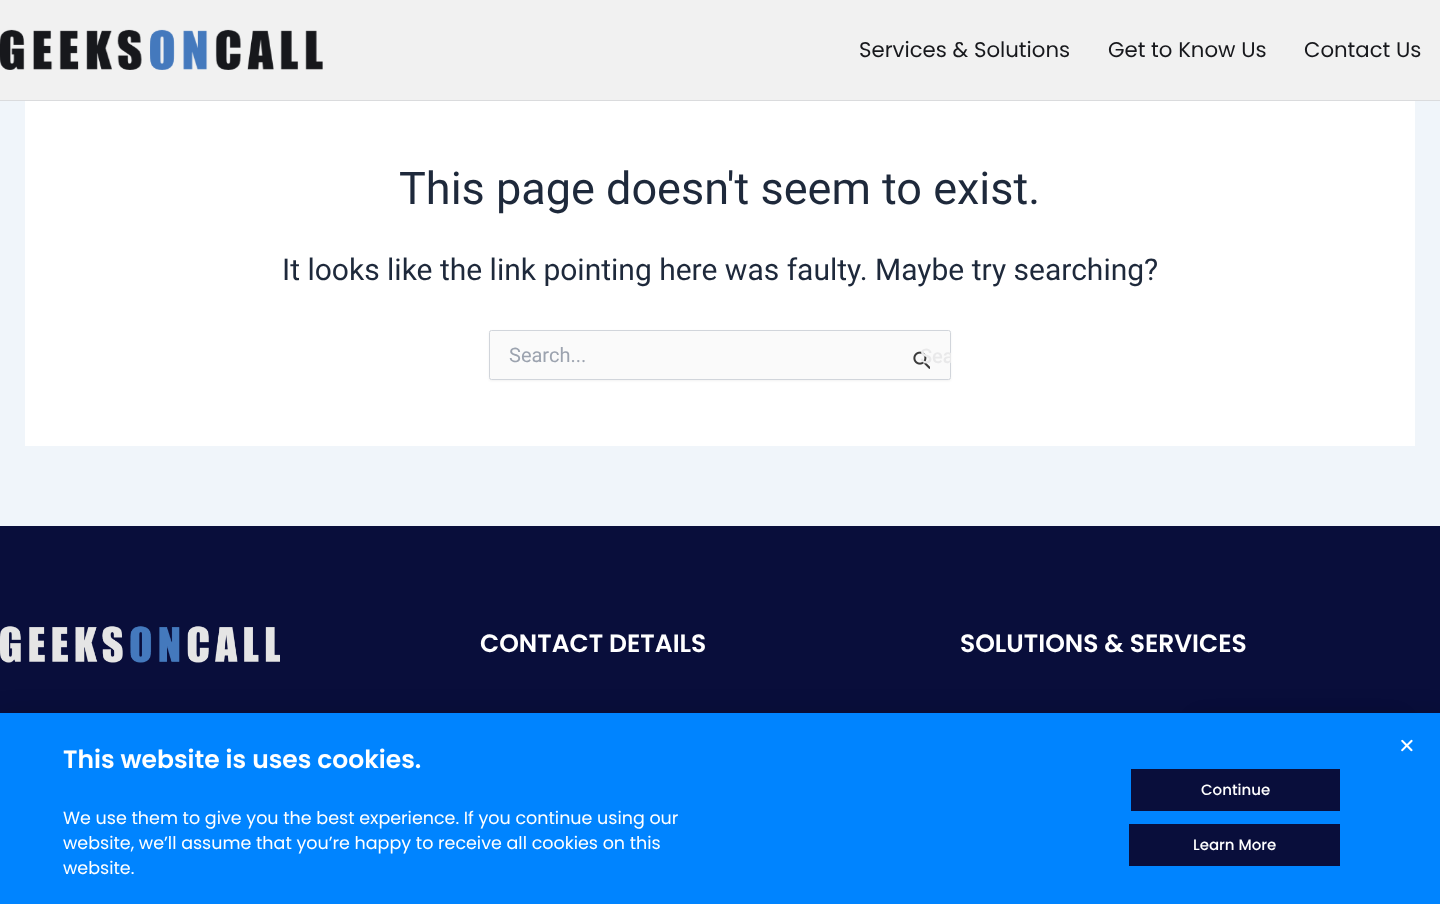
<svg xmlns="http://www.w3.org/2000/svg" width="1440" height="904">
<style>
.a{font:21.25px Poppins;fill:#17181c}
.b{font:45px Roboto;fill:#1e293b}
.c{font:30px Roboto;fill:#1e293b}
.d{font:20px Roboto;fill:#9ca3af}
.e{font:500 20px Roboto;fill:#e9e9ea}
.f{font:600 25px Poppins;fill:#fff}
.g{font:17.5px Poppins;fill:#fff}
.h{font:500 15px Poppins;fill:#fff}
</style>
<defs>
<clipPath id="clip1"><rect x="895" y="330" width="56" height="53" rx="2.5"/></clipPath>
</defs>
<rect width="100%" height="100%" fill="#f0f5fa"/>
<path fill="#f1f1f1" d="M0 0h1440v100H0z"/>
<path fill="#dadbdd" d="M0 100h1440v1H0z"/>
<image href="1.png" x="0" y="29" width="323" height="41"/>
<path fill="#fff" d="M25 101h1390v345H25z"/>
<rect fill="#0000000d" filter="blur(1px)" x="489" y="331" width="462" height="50" rx="2.5"/>
<rect fill="#fafafa" stroke="#d1d5db" x="489.5" y="330.5" width="461" height="49" rx="2"/>
<image href="2.png" x="913" y="351" width="17" height="18"/>
<path fill="#090e3b" d="M0 526h1440v187H0z"/>
<image href="3.png" x="0" y="626" width="280" height="37"/>
<path fill="#00000033" filter="blur(14.5px)" d="M-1 719h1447v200H-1z"/>
<rect fill="#00000026" filter="blur(9.5px)" x="1194" y="718" width="209" height="51" rx="10"/>
<path fill="#0084ff" d="M0 713h1440v191H0z"/>
<image href="4.png" x="1401" y="739" width="12" height="13"/>
<path fill="#090e3b" d="M1131 769h209v42H1131z"/>
<path fill="#090e3b" d="M1129 824h211v42H1129z"/>
<text class="a" x="859" y="57">Services &amp; Solutions</text>
<text class="a" x="1108" y="57">Get to Know Us</text>
<text class="a" x="1304" y="57">Contact Us</text>
<text class="b" x="399" y="204">This page doesn't seem to exist.</text>
<text class="c" x="282" y="280">It looks like the link pointing here was faulty. Maybe try searching?</text>
<text class="d" x="509" y="362">Search...</text>
<g clip-path="url(#clip1)">
<text class="e" x="920" y="363">Sea</text>
</g>
<text class="f" x="480" y="652">CONTACT DETAILS</text>
<text class="f" x="960" y="652">SOLUTIONS &amp; SERVICES</text>
<text class="f" x="63" y="768">This website is uses cookies.</text>
<text class="g" x="63" y="824">We use them to give you the best experience. If you continue using our</text>
<text class="g" x="63" y="849">website, we’ll assume that you’re happy to receive all cookies on this</text>
<text class="g" x="63" y="874">website.</text>
<text class="h" x="1201" y="795">Continue</text>
<text class="h" x="1193" y="850">Learn More</text>
</svg>
